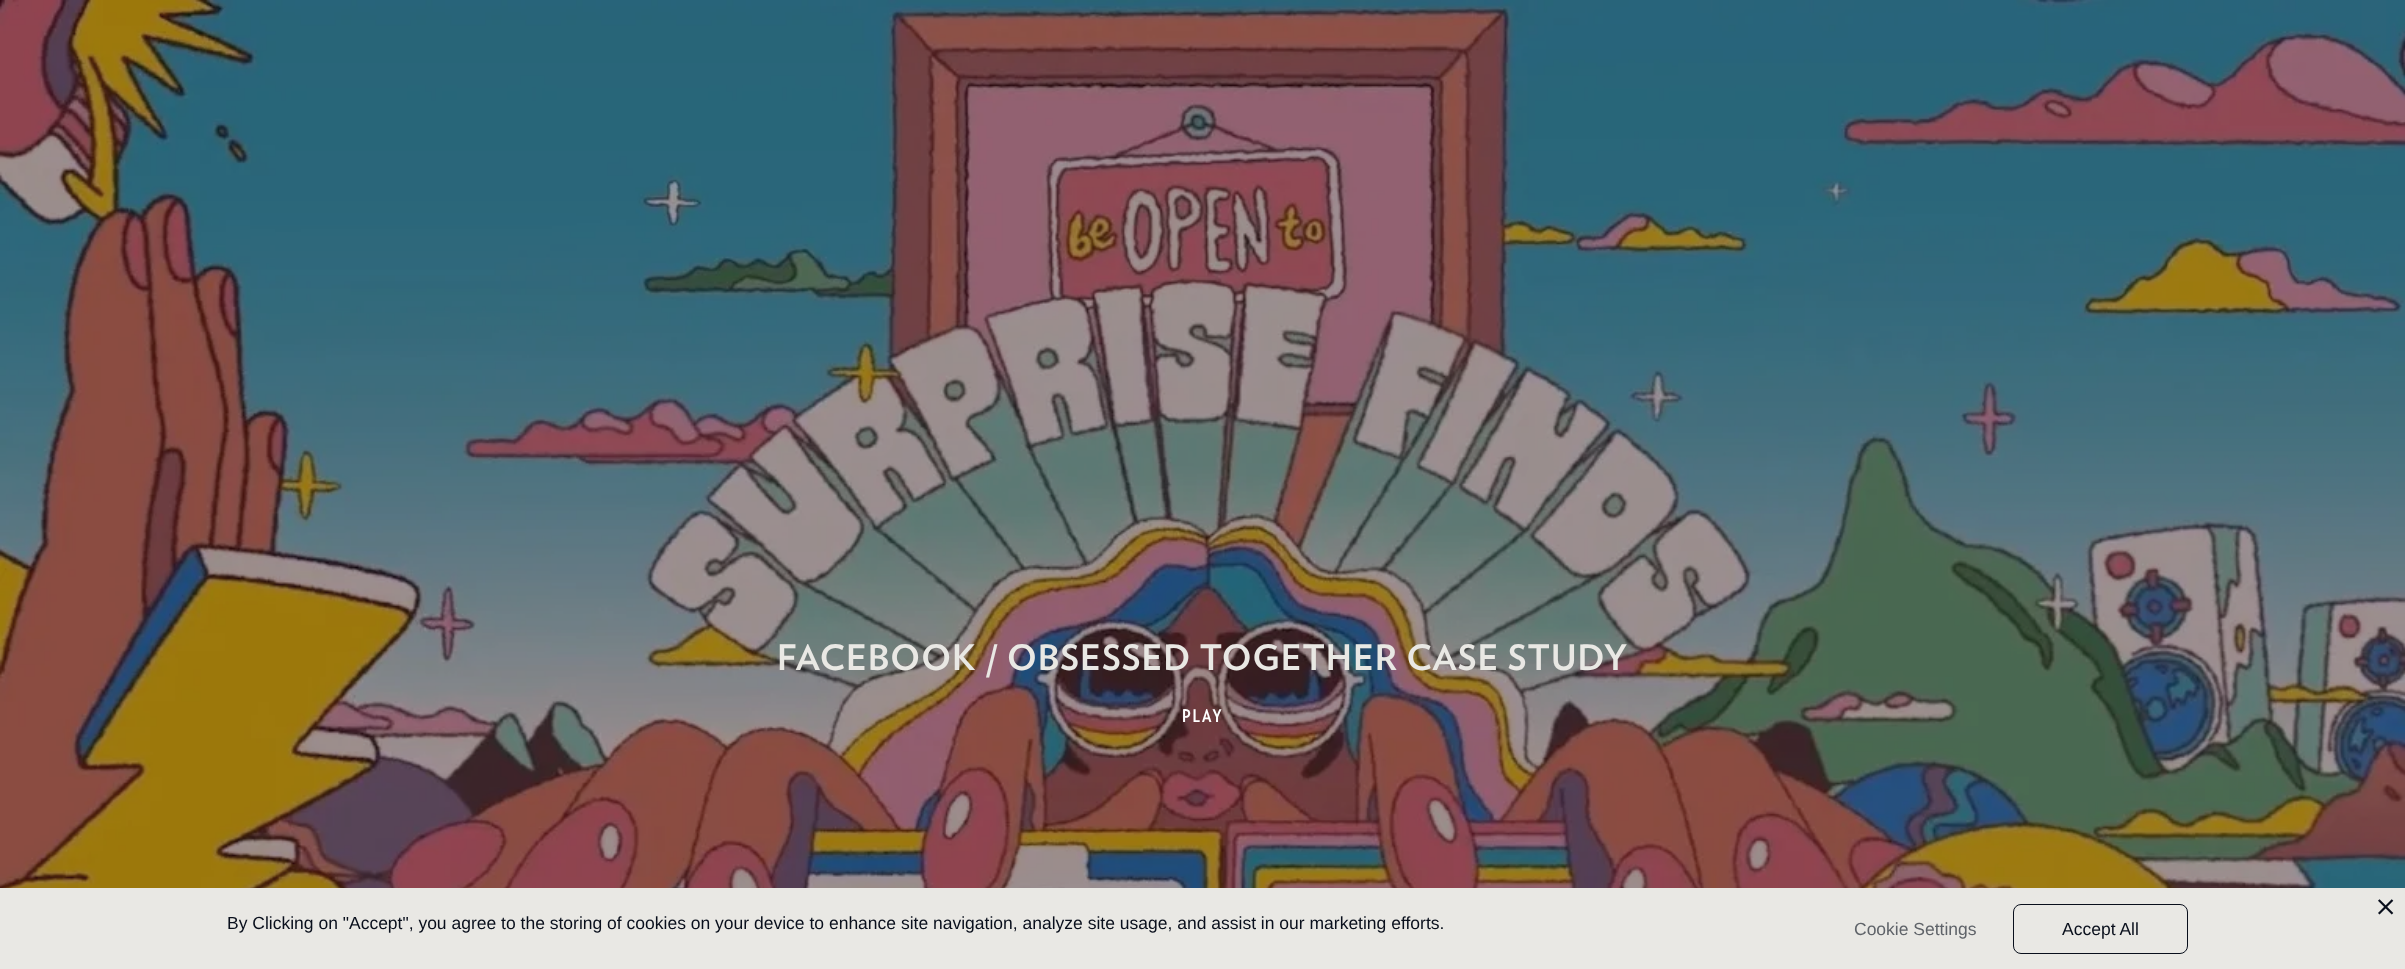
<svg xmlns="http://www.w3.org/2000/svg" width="2405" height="969">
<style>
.a{font:bold 35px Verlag;letter-spacing:1px;fill:#e9e8e4}
.b{font:bold 17.5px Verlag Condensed;letter-spacing:2px;fill:#fff}
.c{font:17.5px Liberation Sans;fill:#090f1c}
.d{font:17.5px Liberation Sans;fill:#5f6369}
</style>
<rect width="100%" height="100%" fill="#fff"/>
<image href="1.png" x="0" y="0" width="2405" height="888"/>
<path fill="#e9e8e4" d="M0 888h2405v81H0z"/>
<image href="2.png" x="2378" y="899" width="16" height="16"/>
<rect fill="none" stroke="#090f1c" x="2013.5" y="904.5" width="174" height="49" rx="7.5"/>
<text class="a" x="777" y="670">FACEBOOK / OBSESSED TOGETHER CASE STUDY</text>
<text class="b" x="1182" y="722">PLAY</text>
<text class="c" x="227" y="929">By Clicking on "Accept", you agree to the storing of cookies on your device to enhance site navigation, analyze site usage, and assist in our marketing efforts.</text>
<text class="d" x="1854" y="935">Cookie Settings</text>
<text class="c" x="2062" y="935">Accept All</text>
</svg>
